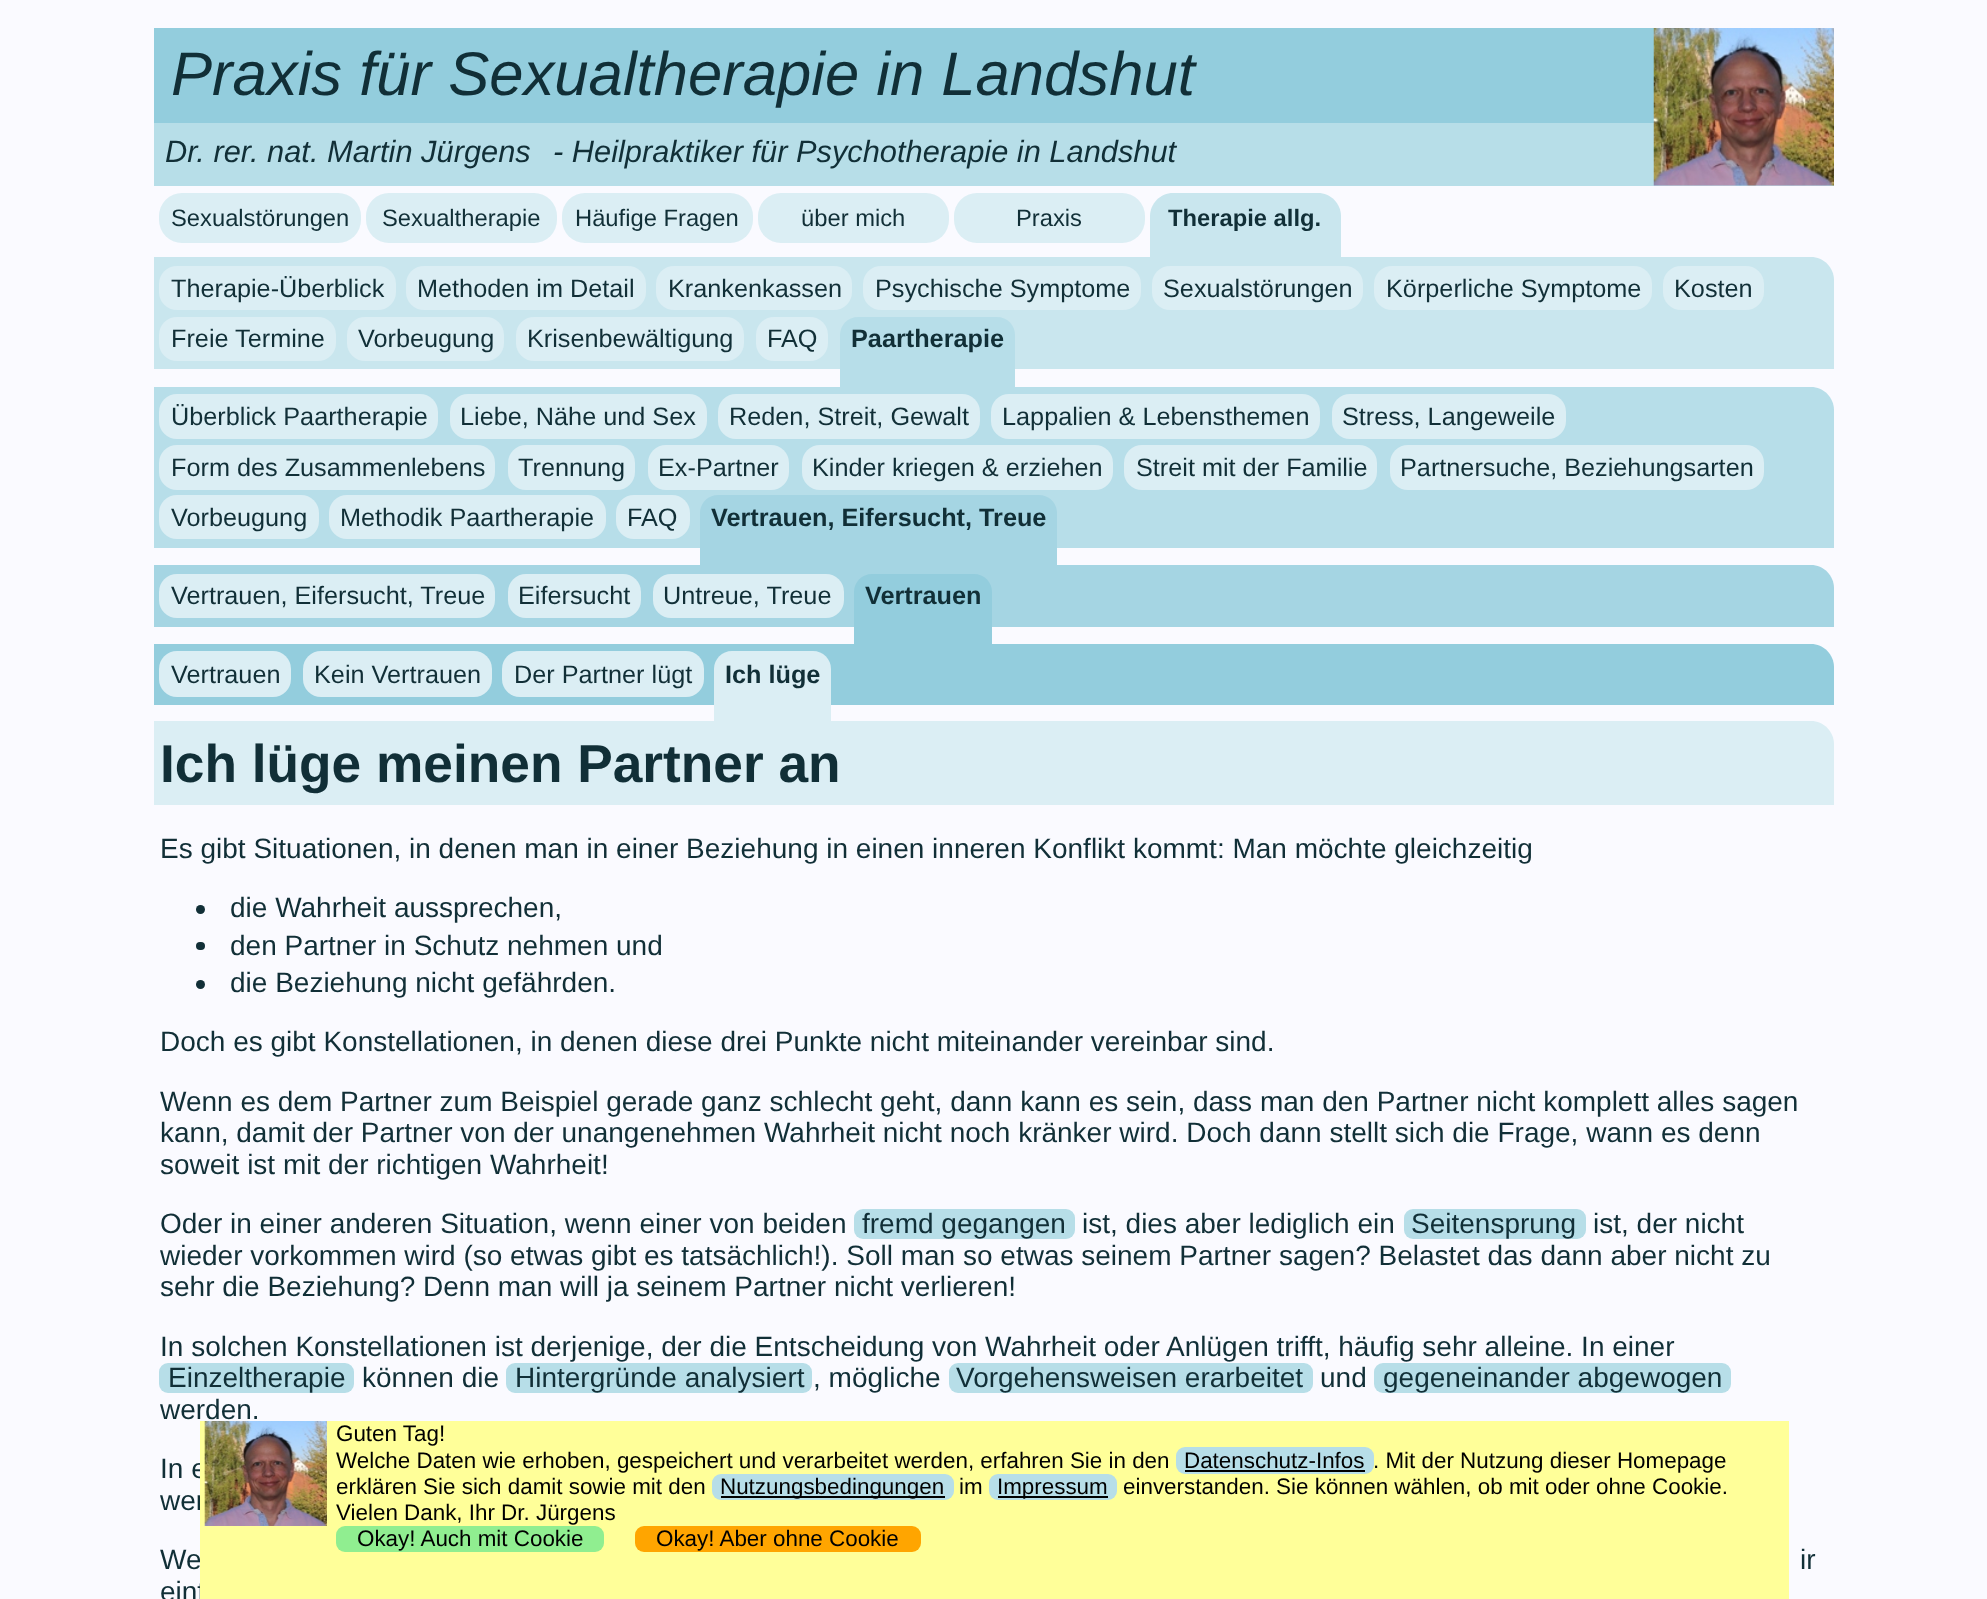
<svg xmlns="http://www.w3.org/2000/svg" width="1987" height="1599">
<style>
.a{font:italic 61.6px Liberation Sans;fill:#112f37}
.b{font:italic 30.8px Liberation Sans;fill:#112f37}
.c{font:23.75px Liberation Sans;fill:#112f37}
.d{font:bold 23.75px Liberation Sans;fill:#112f37}
.e{font:25.25px Liberation Sans;fill:#112f37}
.f{font:bold 25.25px Liberation Sans;fill:#112f37}
.g{font:bold 53.25px Liberation Sans;fill:#112f37}
.h{font:28px Liberation Sans;fill:#112f37}
.i{font:22.4px Liberation Sans;fill:#000}
</style>
<rect width="100%" height="100%" fill="#fafaff"/>
<path fill="#93cddd" d="M154 28h1500v95H154z"/>
<path fill="#b7dee8" d="M154 123h1680v63H154z"/>
<image href="1.png" x="1653" y="28" width="181" height="158"/>
<rect fill="#dbeef4" x="159" y="193" width="202" height="50" rx="23"/>
<rect fill="#dbeef4" x="366" y="193" width="191" height="50" rx="23"/>
<rect fill="#dbeef4" x="562" y="193" width="191" height="50" rx="23"/>
<rect fill="#dbeef4" x="758" y="193" width="191" height="50" rx="23"/>
<rect fill="#dbeef4" x="954" y="193" width="191" height="50" rx="23"/>
<path fill="#c9e6ee" d="M1173 193h145c12.5 0 23 10.5 23 23v41h-191v-41c0-12.5 10.5-23 23-23z"/>
<path fill="#c9e6ee" d="M154 257h1657c12.5 0 23 10.5 23 23v89h-1680z"/>
<rect fill="#dbeef4" x="159" y="266" width="237" height="44" rx="18"/>
<rect fill="#dbeef4" x="406" y="266" width="240" height="44" rx="18"/>
<rect fill="#dbeef4" x="656" y="266" width="196" height="44" rx="18"/>
<rect fill="#dbeef4" x="863" y="266" width="278" height="44" rx="18"/>
<rect fill="#dbeef4" x="1152" y="266" width="211" height="44" rx="18"/>
<rect fill="#dbeef4" x="1374" y="266" width="278" height="44" rx="18"/>
<rect fill="#dbeef4" x="1663" y="266" width="101" height="44" rx="18"/>
<rect fill="#dbeef4" x="159" y="317" width="177" height="44" rx="18"/>
<rect fill="#dbeef4" x="347" y="317" width="157" height="44" rx="18"/>
<rect fill="#dbeef4" x="516" y="317" width="228" height="44" rx="18"/>
<rect fill="#dbeef4" x="756" y="317" width="72" height="44" rx="18"/>
<path fill="#b7dee9" d="M154 387h1657c12.5 0 23 10.5 23 23v138h-1680z"/>
<path fill="#b7dee9" d="M858 317h139c10 0 18 8 18 18v59h-175v-59c0-10 8-18 18-18z"/>
<rect fill="#dbeef4" x="159" y="394" width="279" height="45" rx="18"/>
<rect fill="#dbeef4" x="450" y="394" width="257" height="45" rx="18"/>
<rect fill="#dbeef4" x="718" y="394" width="262" height="45" rx="18"/>
<rect fill="#dbeef4" x="991" y="394" width="329" height="45" rx="18"/>
<rect fill="#dbeef4" x="1332" y="394" width="234" height="45" rx="18"/>
<rect fill="#dbeef4" x="159" y="445" width="336" height="45" rx="18"/>
<rect fill="#dbeef4" x="508" y="445" width="127" height="45" rx="18"/>
<rect fill="#dbeef4" x="648" y="445" width="141" height="45" rx="18"/>
<rect fill="#dbeef4" x="802" y="445" width="311" height="45" rx="18"/>
<rect fill="#dbeef4" x="1124" y="445" width="253" height="45" rx="18"/>
<rect fill="#dbeef4" x="1390" y="445" width="374" height="45" rx="18"/>
<rect fill="#dbeef4" x="159" y="495" width="160" height="44" rx="18"/>
<rect fill="#dbeef4" x="329" y="495" width="277" height="44" rx="18"/>
<rect fill="#dbeef4" x="616" y="495" width="74" height="44" rx="18"/>
<path fill="#a5d5e3" d="M154 565h1657c12.5 0 23 10.5 23 23v39h-1680z"/>
<path fill="#a5d5e3" d="M718 495h321c10 0 18 8 18 18v61h-357v-61c0-10 8-18 18-18z"/>
<rect fill="#dbeef4" x="159" y="574" width="336" height="44" rx="18"/>
<rect fill="#dbeef4" x="508" y="574" width="133" height="44" rx="18"/>
<rect fill="#dbeef4" x="653" y="574" width="191" height="44" rx="18"/>
<path fill="#93cddd" d="M154 644h1657c12.5 0 23 10.5 23 23v38h-1680z"/>
<path fill="#93cddd" d="M872 574h102c10 0 18 8 18 18v59h-138v-59c0-10 8-18 18-18z"/>
<rect fill="#dbeef4" x="159" y="651" width="132" height="46" rx="18"/>
<rect fill="#dbeef4" x="303" y="651" width="189" height="46" rx="18"/>
<rect fill="#dbeef4" x="502" y="651" width="202" height="46" rx="18"/>
<path fill="#dbeef4" d="M154 721h1657c12.5 0 23 10.5 23 23v61h-1680z"/>
<path fill="#dbeef4" d="M732 651h81c10 0 18 8 18 18v61h-117v-61c0-10 8-18 18-18z"/>
<circle fill="#112f37" cx="200.5" cy="909.5" r="4.5"/>
<rect fill="#112f37" x="196" y="942" width="9" height="8" rx="4"/>
<circle fill="#112f37" cx="200.5" cy="984.5" r="4.5"/>
<rect fill="#b7dee8" x="854" y="1209" width="221" height="30" rx="9"/>
<rect fill="#b7dee8" x="1404" y="1209" width="182" height="30" rx="9"/>
<rect fill="#b7dee8" x="159" y="1363" width="195" height="30" rx="9"/>
<rect fill="#b7dee8" x="506" y="1363" width="306" height="30" rx="9"/>
<rect fill="#b7dee8" x="949" y="1363" width="364" height="30" rx="9"/>
<rect fill="#b7dee8" x="1374" y="1363" width="357" height="30" rx="9"/>
<text class="a" x="171" y="95">Praxis für Sexualtherapie in Landshut</text>
<text class="b" x="165" y="162">Dr. rer. nat. Martin Jürgens</text>
<text class="b" x="553" y="162">- Heilpraktiker für Psychotherapie in Landshut</text>
<text class="c" x="171" y="226">Sexualstörungen</text>
<text class="c" x="382" y="226">Sexualtherapie</text>
<text class="c" x="575" y="226">Häufige Fragen</text>
<text class="c" x="801" y="226">über mich</text>
<text class="c" x="1016" y="226">Praxis</text>
<text class="d" x="1168" y="226">Therapie allg.</text>
<text class="e" x="171" y="297">Therapie-Überblick</text>
<text class="e" x="417" y="297">Methoden im Detail</text>
<text class="e" x="668" y="297">Krankenkassen</text>
<text class="e" x="875" y="297">Psychische Symptome</text>
<text class="e" x="1163" y="297">Sexualstörungen</text>
<text class="e" x="1386" y="297">Körperliche Symptome</text>
<text class="e" x="1674" y="297">Kosten</text>
<text class="e" x="171" y="347">Freie Termine</text>
<text class="e" x="358" y="347">Vorbeugung</text>
<text class="e" x="527" y="347">Krisenbewältigung</text>
<text class="e" x="767" y="347">FAQ</text>
<text class="f" x="851" y="347">Paartherapie</text>
<text class="e" x="171" y="425">Überblick Paartherapie</text>
<text class="e" x="460" y="425">Liebe, Nähe und Sex</text>
<text class="e" x="729" y="425">Reden, Streit, Gewalt</text>
<text class="e" x="1002" y="425">Lappalien &amp; Lebensthemen</text>
<text class="e" x="1342" y="425">Stress, Langeweile</text>
<text class="e" x="171" y="476">Form des Zusammenlebens</text>
<text class="e" x="518" y="476">Trennung</text>
<text class="e" x="658" y="476">Ex-Partner</text>
<text class="e" x="812" y="476">Kinder kriegen &amp; erziehen</text>
<text class="e" x="1136" y="476">Streit mit der Familie</text>
<text class="e" x="1400" y="476">Partnersuche, Beziehungsarten</text>
<text class="e" x="171" y="526">Vorbeugung</text>
<text class="e" x="340" y="526">Methodik Paartherapie</text>
<text class="e" x="627" y="526">FAQ</text>
<text class="f" x="711" y="526">Vertrauen, Eifersucht, Treue</text>
<text class="e" x="171" y="604">Vertrauen, Eifersucht, Treue</text>
<text class="e" x="518" y="604">Eifersucht</text>
<text class="e" x="663" y="604">Untreue, Treue</text>
<text class="f" x="865" y="604">Vertrauen</text>
<text class="e" x="171" y="683">Vertrauen</text>
<text class="e" x="314" y="683">Kein Vertrauen</text>
<text class="e" x="514" y="683">Der Partner lügt</text>
<text class="f" x="725" y="683">Ich lüge</text>
<text class="g" x="160" y="782">Ich lüge meinen Partner an</text>
<text class="h" x="160" y="858">Es gibt Situationen, in denen man in einer Beziehung in einen inneren Konflikt kommt: Man möchte gleichzeitig</text>
<text class="h" x="230" y="917">die Wahrheit aussprechen,</text>
<text class="h" x="230" y="955">den Partner in Schutz nehmen und</text>
<text class="h" x="230" y="992">die Beziehung nicht gefährden.</text>
<text class="h" x="160" y="1051">Doch es gibt Konstellationen, in denen diese drei Punkte nicht miteinander vereinbar sind.</text>
<text class="h" x="160" y="1111">Wenn es dem Partner zum Beispiel gerade ganz schlecht geht, dann kann es sein, dass man den Partner nicht komplett alles sagen</text>
<text class="h" x="160" y="1142">kann, damit der Partner von der unangenehmen Wahrheit nicht noch kränker wird. Doch dann stellt sich die Frage, wann es denn</text>
<text class="h" x="160" y="1174">soweit ist mit der richtigen Wahrheit!</text>
<text class="h" x="160" y="1233">Oder in einer anderen Situation, wenn einer von beiden</text>
<text class="h" x="862" y="1233">fremd gegangen</text>
<text class="h" x="1082" y="1233">ist, dies aber lediglich ein</text>
<text class="h" x="1411" y="1233">Seitensprung</text>
<text class="h" x="1593" y="1233">ist, der nicht</text>
<text class="h" x="160" y="1265">wieder vorkommen wird (so etwas gibt es tatsächlich!). Soll man so etwas seinem Partner sagen? Belastet das dann aber nicht zu</text>
<text class="h" x="160" y="1296">sehr die Beziehung? Denn man will ja seinem Partner nicht verlieren!</text>
<text class="h" x="160" y="1356">In solchen Konstellationen ist derjenige, der die Entscheidung von Wahrheit oder Anlügen trifft, häufig sehr alleine. In einer</text>
<text class="h" x="168" y="1387">Einzeltherapie</text>
<text class="h" x="362" y="1387">können die</text>
<text class="h" x="515" y="1387">Hintergründe analysiert</text>
<text class="h" x="813" y="1387">, mögliche</text>
<text class="h" x="956" y="1387">Vorgehensweisen erarbeitet</text>
<text class="h" x="1320" y="1387">und</text>
<text class="h" x="1383" y="1387">gegeneinander abgewogen</text>
<text class="h" x="160" y="1419">werden.</text>
<text class="h" x="160" y="1478">In e</text>
<text class="h" x="160" y="1510">wer</text>
<text class="h" x="160" y="1569">We</text>
<text class="h" x="1800" y="1569">ir</text>
<text class="h" x="160" y="1601">einf</text>
<path fill="#ff9" d="M200 1421h1589v178H200z"/>
<image href="2.png" x="204" y="1421" width="123" height="105"/>
<text class="i" x="336" y="1441">Guten Tag!</text>
<text class="i" x="336" y="1468">Welche Daten wie erhoben, gespeichert und verarbeitet werden, erfahren Sie in den</text>
<rect fill="#b7dee8" x="1176" y="1447" width="198" height="27" rx="9"/>
<text class="i" x="1184" y="1468">Datenschutz-Infos</text>
<path fill="#000" d="M1185 1470h180v2H1185z"/>
<text class="i" x="1373" y="1468">. Mit der Nutzung dieser Homepage</text>
<text class="i" x="336" y="1494">erklären Sie sich damit sowie mit den</text>
<rect fill="#b7dee8" x="712" y="1474" width="242" height="26" rx="9"/>
<path fill="#000" d="M721 1496h224v2H721z"/>
<text class="i" x="720" y="1494">Nutzungsbedingungen</text>
<text class="i" x="959" y="1494">im</text>
<rect fill="#b7dee8" x="989" y="1474" width="128" height="26" rx="9"/>
<path fill="#000" d="M998 1496h110v2H998z"/>
<text class="i" x="997" y="1494">Impressum</text>
<text class="i" x="1123" y="1494">einverstanden. Sie können wählen, ob mit oder ohne Cookie.</text>
<text class="i" x="336" y="1520">Vielen Dank, Ihr Dr. Jürgens</text>
<rect fill="#90ee90" x="336" y="1526" width="268" height="26" rx="9"/>
<text class="i" x="357" y="1546">Okay! Auch mit Cookie</text>
<rect fill="#ffa500" x="635" y="1526" width="286" height="26" rx="9"/>
<text class="i" x="656" y="1546">Okay! Aber ohne Cookie</text>
</svg>
